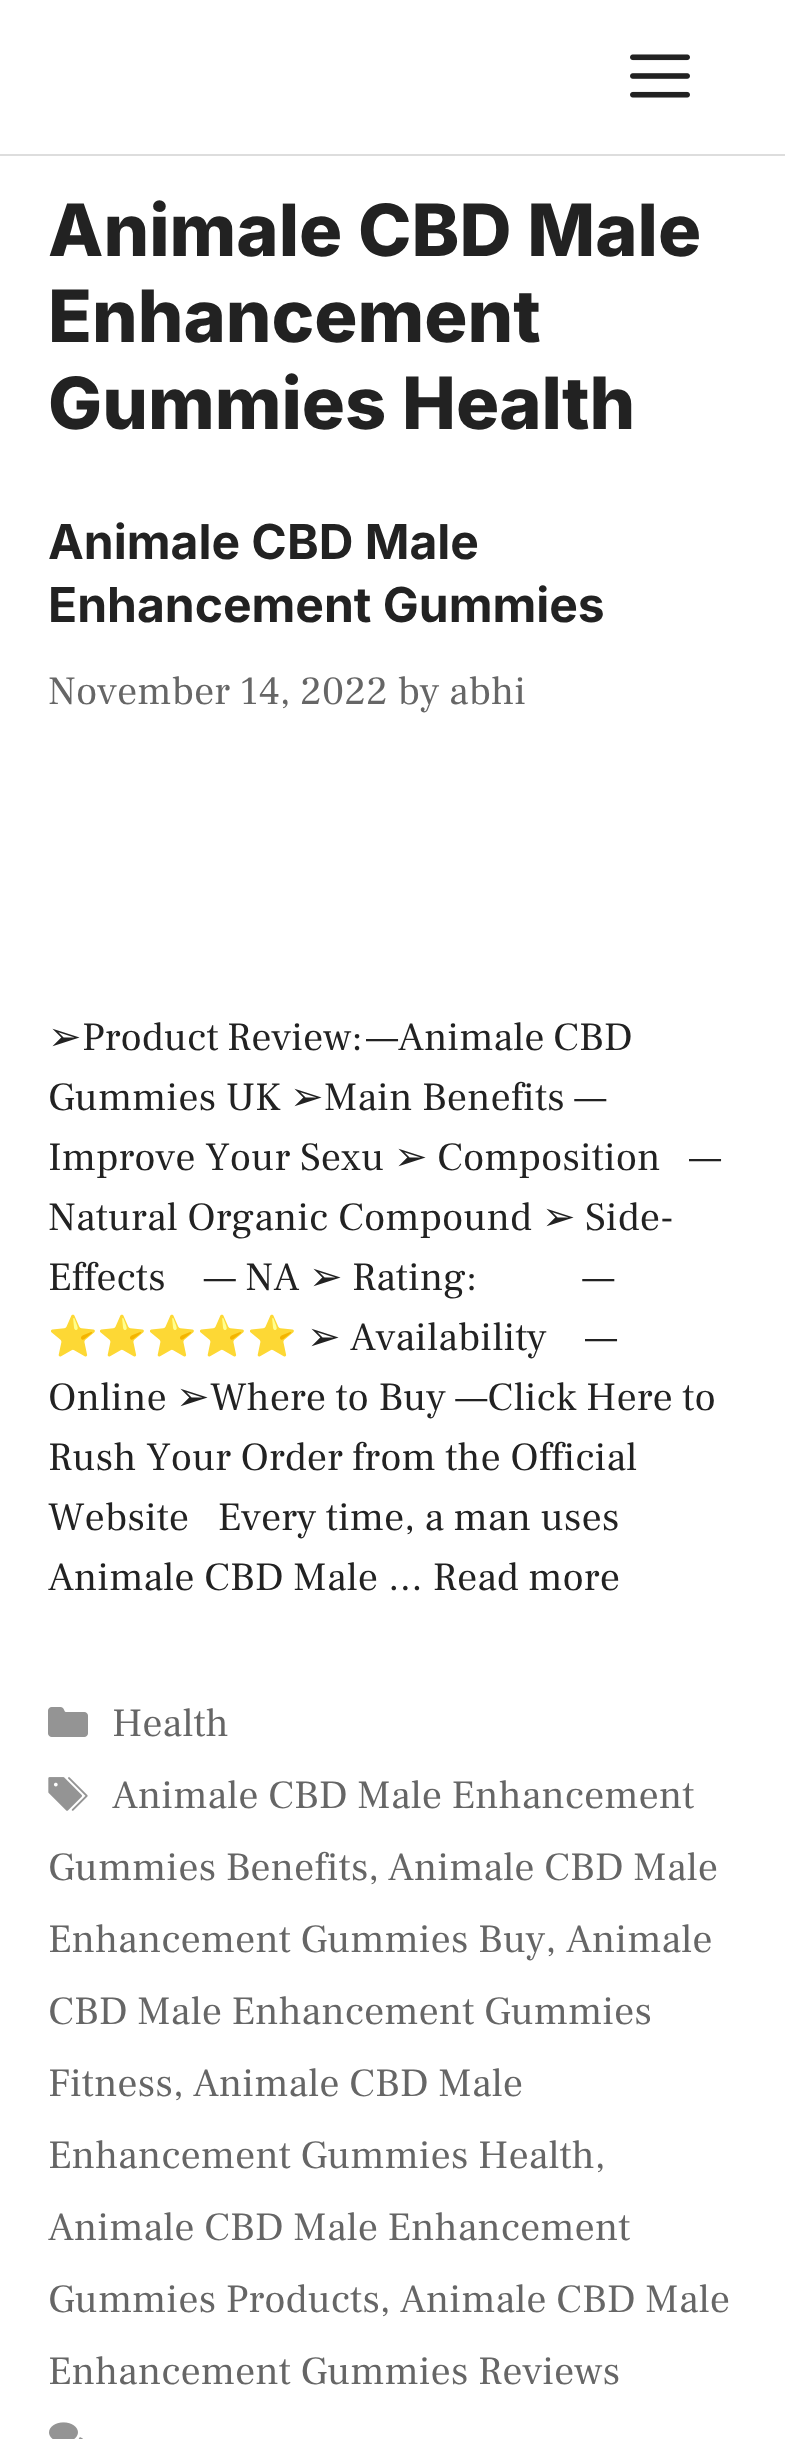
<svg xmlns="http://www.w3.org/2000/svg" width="785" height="2439">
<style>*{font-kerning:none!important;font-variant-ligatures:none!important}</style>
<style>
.a{font:800 72px Inter;fill:#222}
.b{font:bold 48px Inter;fill:#222}
.c{font:40px Frank Ruhl Libre;fill:#666}
.d{font:40px DejaVu Sans;fill:#222}
.e{font:40px Frank Ruhl Libre;fill:#222}
.f{font:40px Noto Color Emoji;fill:#222}
</style>
<rect width="100%" height="100%" fill="#fff"/>
<path fill="#ddd" d="M0 154h785v2H0z"/>
<image href="1.png" x="630" y="54" width="60" height="44"/>
<image href="2.png" x="48" y="1707" width="40" height="30"/>
<image href="3.png" x="48" y="1777" width="40" height="34"/>
<image href="4.png" x="49" y="2422" width="34" height="17"/>
<text class="a" x="48" y="256">Animale CBD Male</text>
<text class="a" x="48" y="342">Enhancement</text>
<text class="a" x="48" y="429">Gummies Health</text>
<text class="b" x="48" y="559">Animale CBD Male</text>
<text class="b" x="48" y="622">Enhancement Gummies</text>
<text class="c" x="48" y="704">November 14, 2022 by abhi</text>
<text class="d" x="48" y="1050">➢</text>
<text class="e" x="82" y="1050" word-spacing="-1">Product Review:</text>
<text class="e" x="366" y="1050" word-spacing="-1">—Animale CBD</text>
<text class="e" x="48" y="1110">Gummies UK</text>
<text class="d" x="290" y="1110">➢</text>
<text class="e" x="324" y="1110">Main Benefits —</text>
<text class="e" x="48" y="1170">Improve Your</text>
<text class="e" x="300" y="1170">Sexu</text>
<text class="d" x="394" y="1170">➢</text>
<text class="e" xml:space="preserve" x="437" y="1170">Composition   —</text>
<text class="e" x="48" y="1230">Natural Organic Compound</text>
<text class="d" x="542" y="1230">➢</text>
<text class="e" x="585" y="1230">Side-</text>
<text class="e" xml:space="preserve" x="48" y="1290">Effects    — NA</text>
<text class="d" x="309" y="1290">➢</text>
<text class="e" xml:space="preserve" x="352" y="1290">Rating:           —</text>
<text class="f" x="48" y="1350">⭐⭐⭐⭐⭐</text>
<text class="d" x="307" y="1350">➢</text>
<text class="e" xml:space="preserve" x="350" y="1350">Availability    —</text>
<text class="e" x="48" y="1410">Online</text>
<text class="d" x="176" y="1410">➢</text>
<text class="e" x="210" y="1410">Where to Buy —Click Here to</text>
<text class="e" x="48" y="1470">Rush Your Order</text>
<text class="e" x="352" y="1470">from the Official</text>
<text class="e" xml:space="preserve" x="48" y="1530">Website   Every time, a man uses</text>
<text class="e" x="48" y="1590">Animale CBD Male … Read more</text>
<text class="c" x="112" y="1736">Health</text>
<text class="c" x="112" y="1808">Animale CBD Male Enhancement</text>
<text class="c" x="48" y="1880">Gummies Benefits,</text>
<text class="c" x="388" y="1880">Animale CBD Male</text>
<text class="c" x="48" y="1952">Enhancement Gummies Buy,</text>
<text class="c" x="566" y="1952">Animale</text>
<text class="c" x="48" y="2024">CBD Male Enhancement Gummies</text>
<text class="c" x="48" y="2096">Fitness, Animale CBD Male</text>
<text class="c" x="48" y="2168">Enhancement Gummies Health,</text>
<text class="c" x="48" y="2240">Animale CBD Male Enhancement</text>
<text class="c" x="48" y="2312">Gummies Products,</text>
<text class="c" x="400" y="2312">Animale CBD Male</text>
<text class="c" x="48" y="2384">Enhancement Gummies Reviews</text>
</svg>
